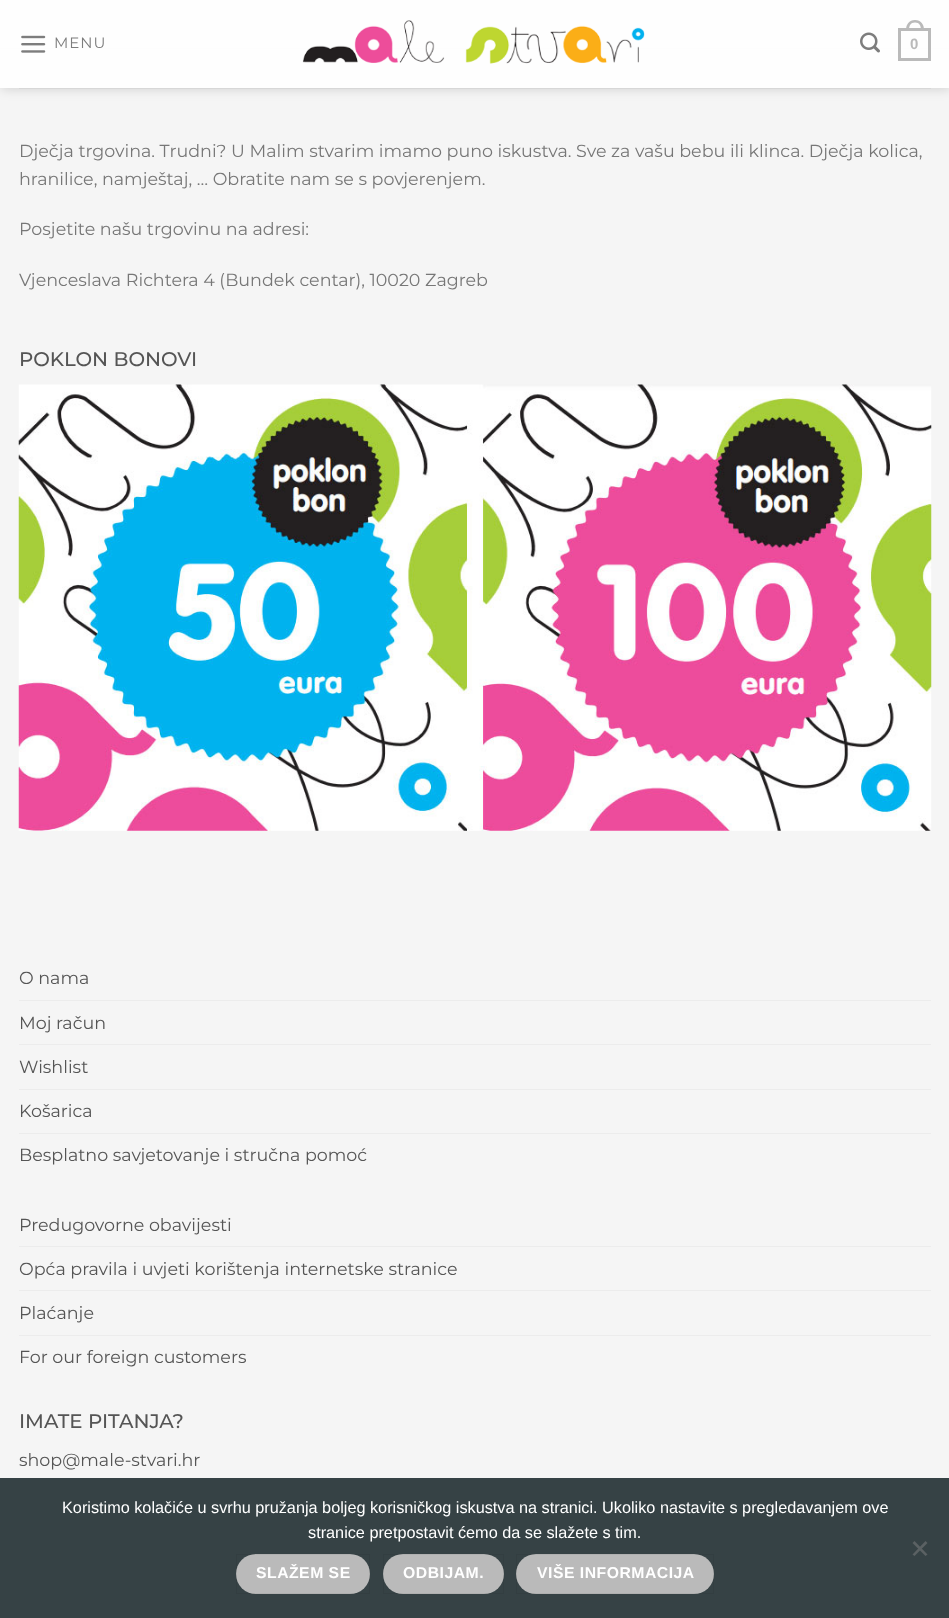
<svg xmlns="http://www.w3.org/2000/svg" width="949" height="1618">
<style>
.a{font:15px Montserrat;letter-spacing:1px;fill:#7d7d7d}
.b{font:bold 15px Liberation Sans;fill:#bababa}
.c{font:17.5px Montserrat;fill:#777}
.d{font:500 19.75px Montserrat;fill:#555}
.e{font:17.5px Montserrat;fill:#555}
.f{font:16.25px Liberation Sans;fill:#fff}
.g{font:bold 15.75px Liberation Sans;letter-spacing:0.5px;fill:#fff}
</style>
<defs>
<clipPath id="clip1"><path d="M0 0h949v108h-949zm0 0h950v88h-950z" clip-rule="evenodd"/></clipPath>
</defs>
<rect width="100%" height="100%" fill="#f5f5f5"/>
<path fill="#e9e9e9" d="M0 48h949v1H0z"/>
<g clip-path="url(#clip1)">
<path fill="#00000026" filter="blur(6px)" d="M1 1h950v88H1z"/>
</g>
<path fill="#ffffffe6" d="M0 0h949v88H0z"/>
<image href="1.png" x="21" y="35" width="25" height="18"/>
<image href="2.png" x="302" y="20" width="343" height="44"/>
<image href="3.png" x="860" y="32" width="20" height="21"/>
<path fill="none" stroke="#bababa" stroke-width="3" d="M899.5 29.5h30v30H899.5z"/>
<path fill="#bababa" fill-rule="evenodd" d="M915 20c6 0 9 4.5 9 10h-18c0-5.5 3-10 9-10zm0 2.5c4.5 0 6 3.5 6 7.5h-12c0-4 1.5-7.5 6-7.5z"/>
<path fill="#d7d7d7" d="M19 88h912v1H19z"/>
<image href="4.png" x="18" y="384" width="914" height="447"/>
<path fill="#ececec" d="M19 1000h912v1H19z"/>
<path fill="#ececec" d="M19 1044h912v1H19z"/>
<path fill="#ececec" d="M19 1089h912v1H19z"/>
<path fill="#ececec" d="M19 1133h912v1H19z"/>
<path fill="#ececec" d="M19 1246h912v1H19z"/>
<path fill="#ececec" d="M19 1290h912v1H19z"/>
<path fill="#ececec" d="M19 1335h912v1H19z"/>
<path fill="#364245" d="M0 1478h949v140H0z"/>
<path fill="#5b6163" d="M925.5 1541l2 2l-13 13l-2-1.5z"/>
<path fill="#5b6163" d="M912.5 1543l2-2l13 13.5l-2 1.5z"/>
<rect fill="#bababa" x="236" y="1554" width="134" height="40" rx="20"/>
<path fill="none" stroke="#0000000d" d="M236.5 1554.5h133v39H236.5z"/>
<rect fill="#bababa" x="383" y="1554" width="121" height="40" rx="20"/>
<path fill="none" stroke="#0000000d" d="M383.5 1554.5h120v39H383.5z"/>
<rect fill="#bababa" x="516" y="1554" width="198" height="40" rx="20"/>
<path fill="none" stroke="#0000000d" d="M516.5 1554.5h197v39H516.5z"/>
<text class="a" x="54" y="48">MENU</text>
<text class="b" x="910" y="49">0</text>
<text class="c" x="19" y="157">Dječja trgovina. Trudni? U Malim stvarim imamo puno iskustva. Sve za vašu bebu ili klinca. Dječja kolica,</text>
<text class="c" x="19" y="185">hranilice, namještaj, … Obratite nam se s povjerenjem.</text>
<text class="c" x="19" y="235">Posjetite našu trgovinu na adresi:</text>
<text class="c" x="19" y="286">Vjenceslava Richtera 4 (Bundek centar), 10020 Zagreb</text>
<text class="d" x="19" y="366">POKLON BONOVI</text>
<text class="e" x="19" y="984">O nama</text>
<text class="e" x="19" y="1029">Moj račun</text>
<text class="e" x="19" y="1073">Wishlist</text>
<text class="e" x="19" y="1117">Košarica</text>
<text class="e" x="19" y="1161">Besplatno savjetovanje i stručna pomoć</text>
<text class="e" x="19" y="1231">Predugovorne obavijesti</text>
<text class="e" x="19" y="1275">Opća pravila i uvjeti korištenja internetske stranice</text>
<text class="e" x="19" y="1319">Plaćanje</text>
<text class="e" x="19" y="1363">For our foreign customers</text>
<text class="d" x="19" y="1428">IMATE PITANJA?</text>
<text class="e" x="19" y="1466">shop@male-stvari.hr</text>
<text class="f" x="62" y="1513">Koristimo kolačiće u svrhu pružanja boljeg korisničkog iskustva na stranici. Ukoliko nastavite s pregledavanjem ove</text>
<text class="f" x="308" y="1538">stranice pretpostavit ćemo da se slažete s tim.</text>
<text class="g" x="256" y="1578">SLAŽEM SE</text>
<text class="g" x="403" y="1578">ODBIJAM.</text>
<text class="g" x="537" y="1578">VIŠE INFORMACIJA</text>
</svg>
